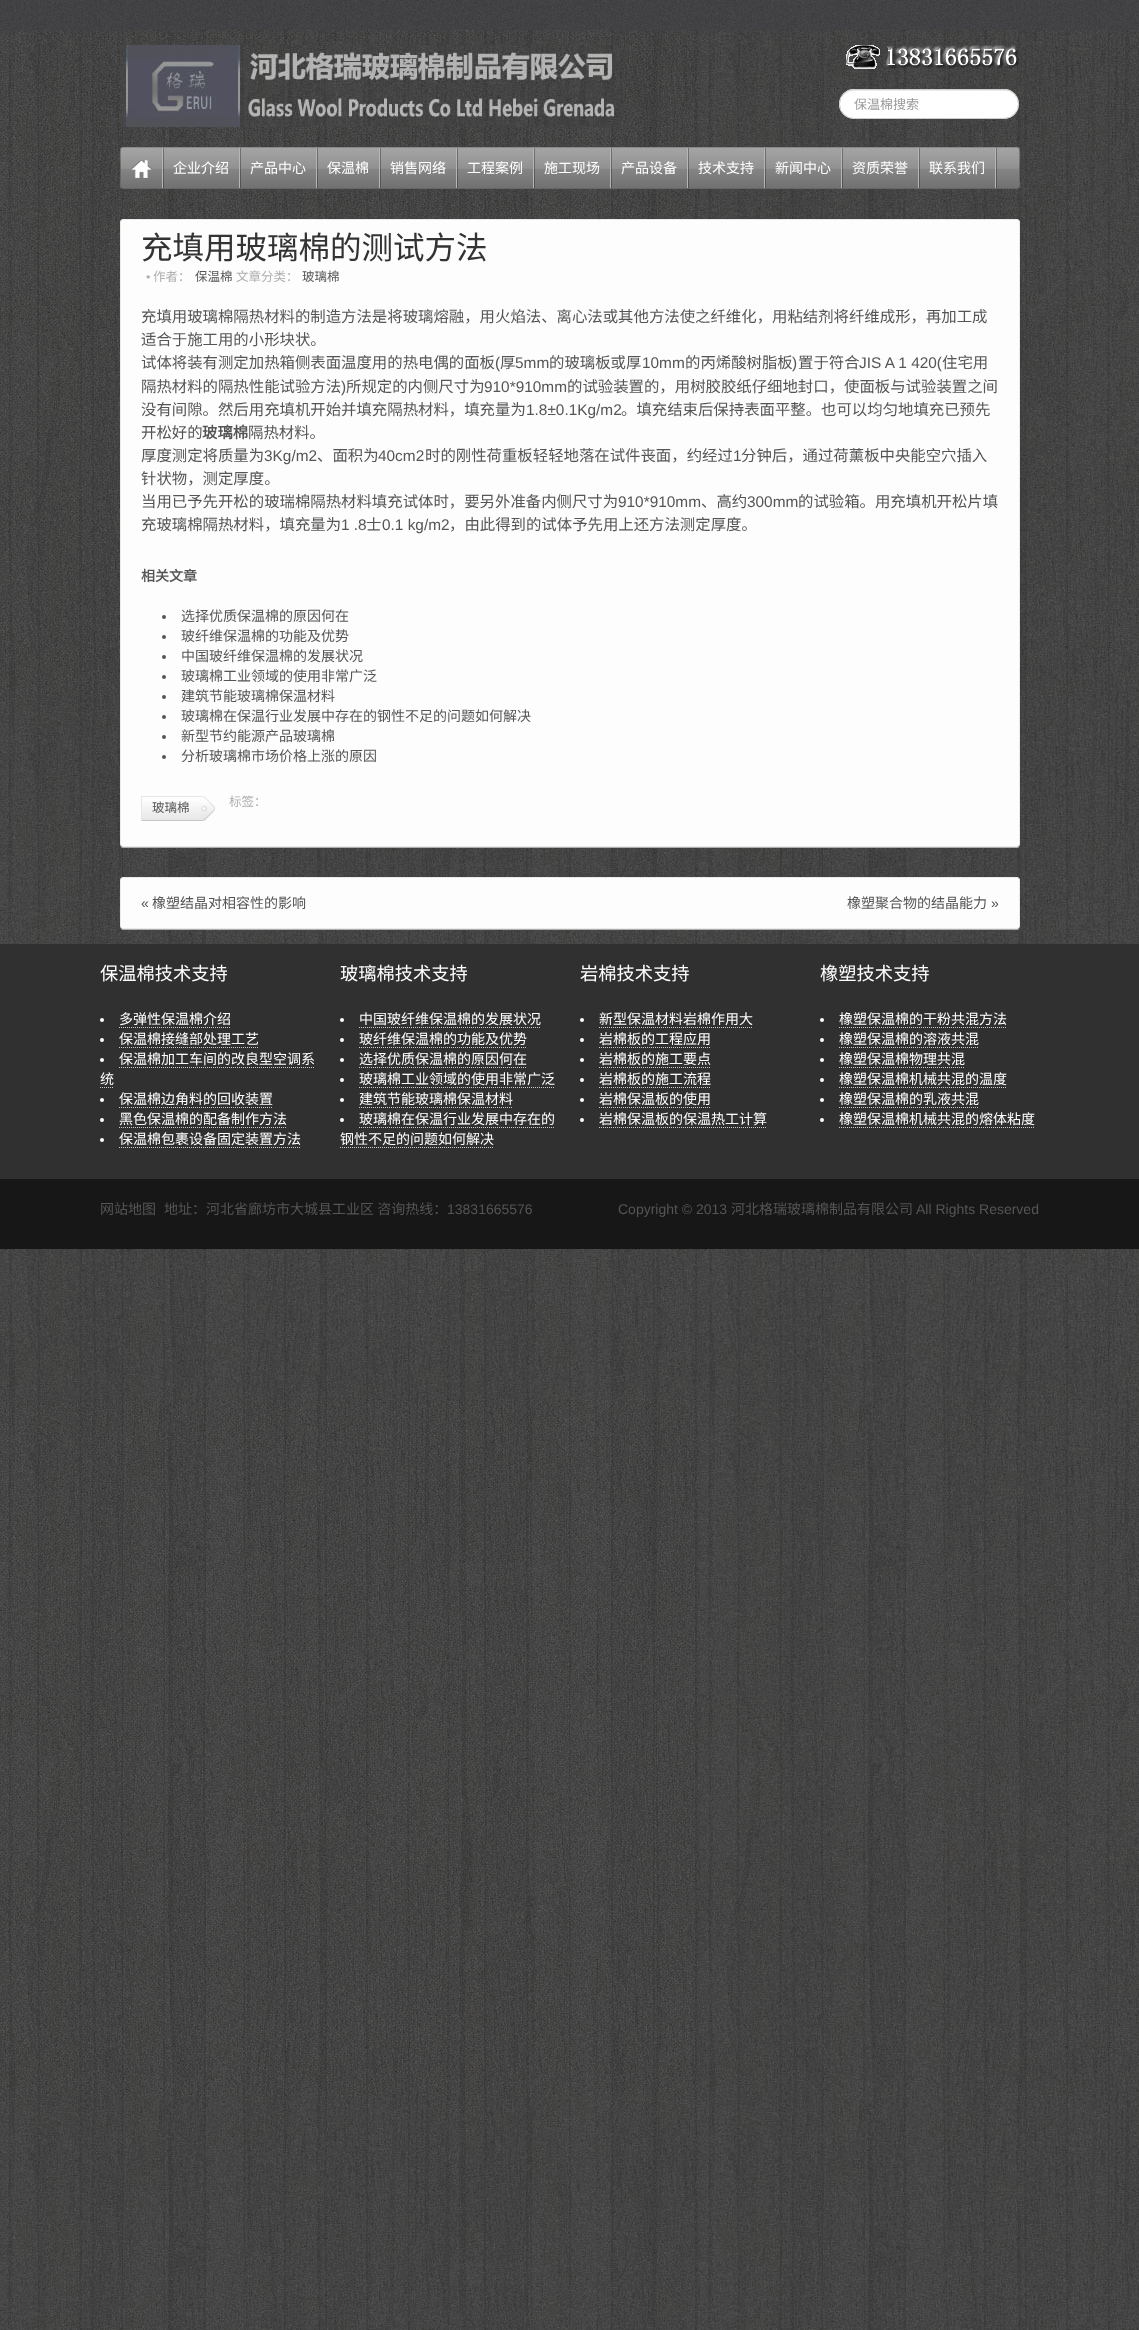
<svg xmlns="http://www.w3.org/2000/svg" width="1139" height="2330">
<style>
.a{font:13px Noto Sans CJK SC;fill:#999}
.b{font:14px Noto Sans CJK SC;fill:#fff}
.c{font:31.5px Noto Sans CJK SC;fill:#333}
.d{font:12.5px Liberation Sans;fill:#afaeae}
.e{font:12.5px Noto Sans CJK SC;fill:#afaeae}
.f{font:12.5px Noto Sans CJK SC;fill:#555}
.g{font:15.4px Noto Sans CJK SC;fill:#555}
.h{font:15.4px Liberation Sans;fill:#555}
.i{font:bold 15.4px Noto Sans CJK SC;fill:#555}
.j{font:bold 14px Noto Sans CJK SC;fill:#555}
.k{font:14px Noto Sans CJK SC;fill:#555}
.l{font:14px Liberation Sans;fill:#555}
.m{font:18.25px Noto Sans CJK SC;fill:#fff}
</style>
<defs>
<clipPath id="clip1"><rect x="120" y="147" width="900" height="42" rx="3"/></clipPath>
<linearGradient id="g1" gradientUnits="userSpaceOnUse" x1="570" y1="148" x2="570" y2="188"><stop offset="0" stop-color="#b6b6b6"/><stop offset="0.01" stop-color="#a4a4a4"/><stop offset="0.51" stop-color="#919191"/><stop offset="0.52" stop-color="#858585"/><stop offset="1" stop-color="#717171"/></linearGradient>
<linearGradient id="g2" gradientUnits="userSpaceOnUse" x1="171" y1="774" x2="171" y2="797"><stop offset="0" stop-color="#fff"/><stop offset="1" stop-color="#e7e7e7"/></linearGradient>
<linearGradient id="g3" gradientUnits="userSpaceOnUse" x1="171" y1="797" x2="171" y2="820"><stop offset="0" stop-color="#fff"/><stop offset="1" stop-color="#e7e7e7"/></linearGradient>
</defs>
<rect width="100%" height="100%" fill="#fff"/>
<image href="1.png" x="0" y="30" width="1139" height="2300"/>
<image href="2.png" x="0" y="0" width="1139" height="30"/>
<image href="3.png" x="846" y="45" width="174" height="24"/>
<image href="4.png" x="120" y="45" width="500" height="82"/>
<rect fill="#fff" x="839" y="89" width="180" height="30" rx="15"/>
<path fill="#ececec" d="M854 91h153c8 2 12 9 11 16c0-3 0-6-1-8c-6-14-29-9-38-9h-100c-10 0-41-6-39 15c0-7 5-14 14-14z"/>
<rect fill="none" stroke="#ccc" x="839.5" y="89.5" width="179" height="29" rx="14.5"/>
<g clip-path="url(#clip1)">
<path fill="url(#g1)" d="M120 148h900v40H120z"/>
</g>
<path fill="none" stroke="#888" d="M121 148l2-.5h894l2 .5"/>
<path fill="none" stroke="#666" d="M1019 148c1.5 2 .5 17 .5 20v12c0 1.5 1.5 8.5-2.5 8.5h-894c-4 0-2.5-7-2.5-8.5v-12c0-3-1-18 .5-20"/>
<path fill="#0000004d" d="M163 148h1v40H163z"/>
<path fill="#b6b6b6" d="M162 148h1v40H162z"/>
<image href="5.png" x="131" y="160" width="21" height="18"/>
<path fill="#0000004d" d="M240 148h1v40H240z"/>
<path fill="#b6b6b6" d="M239 148h1v40H239z"/>
<path fill="#0000004d" d="M317 148h1v40H317z"/>
<path fill="#b6b6b6" d="M316 148h1v40H316z"/>
<path fill="#0000004d" d="M380 148h1v40H380z"/>
<path fill="#b6b6b6" d="M379 148h1v40H379z"/>
<path fill="#0000004d" d="M457 148h1v40H457z"/>
<path fill="#b6b6b6" d="M456 148h1v40H456z"/>
<path fill="#0000004d" d="M534 148h1v40H534z"/>
<path fill="#b6b6b6" d="M533 148h1v40H533z"/>
<path fill="#0000004d" d="M611 148h1v40H611z"/>
<path fill="#b6b6b6" d="M610 148h1v40H610z"/>
<path fill="#0000004d" d="M688 148h1v40H688z"/>
<path fill="#b6b6b6" d="M687 148h1v40H687z"/>
<path fill="#0000004d" d="M765 148h1v40H765z"/>
<path fill="#b6b6b6" d="M764 148h1v40H764z"/>
<path fill="#0000004d" d="M842 148h1v40H842z"/>
<path fill="#b6b6b6" d="M841 148h1v40H841z"/>
<path fill="#0000004d" d="M919 148h1v40H919z"/>
<path fill="#b6b6b6" d="M918 148h1v40H918z"/>
<path fill="#0000004d" d="M996 148h1v40H996z"/>
<path fill="#b6b6b6" d="M995 148h1v40H995z"/>
<path fill="#adadad" d="M120 844c0 2 1 4 3 4h894c2 0 3-2 3-4c0 2-1 3-3 3h-894c-2 0-3-1-3-3z"/>
<rect fill="#fdfdfd" stroke="#eaeaea" x="120.5" y="219.5" width="899" height="627" rx="2.5"/>
<circle fill="#555" cx="164" cy="617" r="2"/>
<circle fill="#555" cx="164" cy="637" r="2"/>
<circle fill="#555" cx="164" cy="657" r="2"/>
<circle fill="#555" cx="164" cy="677" r="2"/>
<circle fill="#555" cx="164" cy="697" r="2"/>
<circle fill="#555" cx="164" cy="717" r="2"/>
<circle fill="#555" cx="164" cy="737" r="2"/>
<circle fill="#555" cx="164" cy="757" r="2"/>
<path fill="url(#g2)" d="M141 796h58v1H141z"/>
<path fill="url(#g3)" d="M142 801h57v19H142z"/>
<path fill="#c6c6c6" d="M141 820h58v1H141z"/>
<path fill="#e7e7e7" d="M141 796h1v25H141z"/>
<image href="6.png" x="199" y="796" width="16" height="25"/>
<path fill="#adadad" d="M120 926c0 2 1 4 3 4h894c2 0 3-2 3-4c0 2-1 3-3 3h-894c-2 0-3-1-3-3z"/>
<rect fill="#fdfdfd" stroke="#eaeaea" x="120.5" y="877.5" width="899" height="51" rx="2.5"/>
<path fill="#303030" d="M0 944h1139v235H0z"/>
<circle fill="#fff" cx="102" cy="1020" r="2"/>
<path fill="none" stroke="#ccc" stroke-dasharray="1 1" d="M119 1027.5h112"/>
<circle fill="#fff" cx="102" cy="1040" r="2"/>
<path fill="none" stroke="#ccc" stroke-dasharray="1 1" d="M119 1047.5h140"/>
<circle fill="#fff" cx="102" cy="1060" r="2"/>
<path fill="none" stroke="#ccc" stroke-dasharray="1 1" d="M119 1067.5h196"/>
<path fill="none" stroke="#ccc" stroke-dasharray="1 1" d="M100 1087.5h14"/>
<circle fill="#fff" cx="102" cy="1100" r="2"/>
<path fill="none" stroke="#ccc" stroke-dasharray="1 1" d="M119 1107.5h154"/>
<circle fill="#fff" cx="102" cy="1120" r="2"/>
<path fill="none" stroke="#ccc" stroke-dasharray="1 1" d="M119 1127.5h168"/>
<circle fill="#fff" cx="102" cy="1140" r="2"/>
<path fill="none" stroke="#ccc" stroke-dasharray="1 1" d="M119 1147.5h182"/>
<circle fill="#fff" cx="342" cy="1020" r="2"/>
<path fill="none" stroke="#ccc" stroke-dasharray="1 1" d="M359 1027.5h182"/>
<circle fill="#fff" cx="342" cy="1040" r="2"/>
<path fill="none" stroke="#ccc" stroke-dasharray="1 1" d="M359 1047.5h168"/>
<circle fill="#fff" cx="342" cy="1060" r="2"/>
<path fill="none" stroke="#ccc" stroke-dasharray="1 1" d="M359 1067.5h168"/>
<circle fill="#fff" cx="342" cy="1080" r="2"/>
<path fill="none" stroke="#ccc" stroke-dasharray="1 1" d="M359 1087.5h196"/>
<circle fill="#fff" cx="342" cy="1100" r="2"/>
<path fill="none" stroke="#ccc" stroke-dasharray="1 1" d="M359 1107.5h154"/>
<circle fill="#fff" cx="342" cy="1120" r="2"/>
<path fill="none" stroke="#ccc" stroke-dasharray="1 1" d="M359 1127.5h196"/>
<path fill="none" stroke="#ccc" stroke-dasharray="1 1" d="M340 1147.5h154"/>
<circle fill="#fff" cx="582" cy="1020" r="2"/>
<path fill="none" stroke="#ccc" stroke-dasharray="1 1" d="M599 1027.5h154"/>
<circle fill="#fff" cx="582" cy="1040" r="2"/>
<path fill="none" stroke="#ccc" stroke-dasharray="1 1" d="M599 1047.5h112"/>
<circle fill="#fff" cx="582" cy="1060" r="2"/>
<path fill="none" stroke="#ccc" stroke-dasharray="1 1" d="M599 1067.5h112"/>
<circle fill="#fff" cx="582" cy="1080" r="2"/>
<path fill="none" stroke="#ccc" stroke-dasharray="1 1" d="M599 1087.5h112"/>
<circle fill="#fff" cx="582" cy="1100" r="2"/>
<path fill="none" stroke="#ccc" stroke-dasharray="1 1" d="M599 1107.5h112"/>
<circle fill="#fff" cx="582" cy="1120" r="2"/>
<path fill="none" stroke="#ccc" stroke-dasharray="1 1" d="M599 1127.5h168"/>
<circle fill="#fff" cx="822" cy="1020" r="2"/>
<path fill="none" stroke="#ccc" stroke-dasharray="1 1" d="M839 1027.5h168"/>
<circle fill="#fff" cx="822" cy="1040" r="2"/>
<path fill="none" stroke="#ccc" stroke-dasharray="1 1" d="M839 1047.5h140"/>
<circle fill="#fff" cx="822" cy="1060" r="2"/>
<path fill="none" stroke="#ccc" stroke-dasharray="1 1" d="M839 1067.5h126"/>
<circle fill="#fff" cx="822" cy="1080" r="2"/>
<path fill="none" stroke="#ccc" stroke-dasharray="1 1" d="M839 1087.5h168"/>
<circle fill="#fff" cx="822" cy="1100" r="2"/>
<path fill="none" stroke="#ccc" stroke-dasharray="1 1" d="M839 1107.5h140"/>
<circle fill="#fff" cx="822" cy="1120" r="2"/>
<path fill="none" stroke="#ccc" stroke-dasharray="1 1" d="M839 1127.5h196"/>
<path fill="#171717" d="M0 1179h1139v70H0z"/>
<text class="a" x="854" y="109">保温棉搜索</text>
<text class="b" x="173" y="173">企业介绍</text>
<text class="b" x="250" y="173">产品中心</text>
<text class="b" x="327" y="173">保温棉</text>
<text class="b" x="390" y="173">销售网络</text>
<text class="b" x="467" y="173">工程案例</text>
<text class="b" x="544" y="173">施工现场</text>
<text class="b" x="621" y="173">产品设备</text>
<text class="b" x="698" y="173">技术支持</text>
<text class="b" x="775" y="173">新闻中心</text>
<text class="b" x="852" y="173">资质荣誉</text>
<text class="b" x="929" y="173">联系我们</text>
<text class="c" x="141" y="259">充填用玻璃棉的测试方法</text>
<text class="d" x="146" y="281">•</text>
<text class="e" x="153" y="281">作者：</text>
<text class="f" x="195" y="281">保温棉</text>
<text class="e" x="236" y="281">文章分类：</text>
<text class="f" x="302" y="281">玻璃棉</text>
<text class="g" x="141" y="322">充填用玻璃棉隔热材料的制造方法是将玻璃熔融，用火焰法、离心法或其他方法使之纤维化，用粘结剂将纤维成形，再加工成</text>
<text class="g" x="141" y="345">适合于施工用的小形块状。</text>
<text class="g" x="141" y="368">试体将装有测定加热箱侧表面温度用的热电偶的面板</text>
<text class="h" x="495" y="368">(</text>
<text class="g" x="500" y="368">厚</text>
<text class="h" x="515" y="368">5mm</text>
<text class="g" x="549" y="368">的玻璃板或厚</text>
<text class="h" x="642" y="368">10mm</text>
<text class="g" x="685" y="368">的丙烯酸树脂板</text>
<text class="h" x="792" y="368">)</text>
<text class="g" x="798" y="368">置于符合</text>
<text class="h" x="859" y="368">JIS A 1 420(</text>
<text class="g" x="942" y="368">住宅用</text>
<text class="g" x="141" y="392">隔热材料的隔热性能试验方法</text>
<text class="h" x="341" y="392">)</text>
<text class="g" x="346" y="392">所规定的内侧尺寸为</text>
<text class="h" x="484" y="392">910*910mm</text>
<text class="g" x="567" y="392">的试验装置的，用树胶胶纸仔细地封口，使面板与试验装置之间</text>
<text class="g" x="141" y="415">没有间隙。然后用充填机开始并填充隔热材料，填充量为</text>
<text class="h" x="526" y="415">1.8±0.1Kg/m2</text>
<text class="g" x="621" y="415">。填充结束后保持表面平整。也可以均匀地填充已预先</text>
<text class="g" x="141" y="438">开松好的</text>
<text class="i" x="202" y="438">玻璃棉</text>
<text class="g" x="248" y="438">隔热材料。</text>
<text class="g" x="141" y="461">厚度测定将质量为</text>
<text class="h" x="264" y="461">3Kg/m2</text>
<text class="g" x="317" y="461">、面积为</text>
<text class="h" x="378" y="461">40cm2</text>
<text class="g" x="425" y="461">时的刚性荷重板轻轻地落在试件丧面，约经过</text>
<text class="h" x="733" y="461">1</text>
<text class="g" x="741" y="461">分钟后，通过荷薰板中央能空穴插入</text>
<text class="g" x="141" y="484">针状物，测定厚度。</text>
<text class="g" x="141" y="507">当用已予先开松的玻瑞棉隔热材料填充试体时，要另外准备内侧尺寸为</text>
<text class="h" x="618" y="507">910*910mm</text>
<text class="g" x="701" y="507">、高约</text>
<text class="h" x="747" y="507">300mm</text>
<text class="g" x="798" y="507">的试验箱。用充填机开松片填</text>
<text class="g" x="141" y="530">充玻璃棉隔热材料，填充量为</text>
<text class="h" x="341" y="530">1 .8</text>
<text class="g" x="366" y="530">士</text>
<text class="h" x="382" y="530">0.1 kg/m2</text>
<text class="g" x="449" y="530">，由此得到的试体予先用上还方法测定厚度。</text>
<text class="j" x="141" y="581">相关文章</text>
<text class="k" x="181" y="621">选择优质保温棉的原因何在</text>
<text class="k" x="181" y="641">玻纤维保温棉的功能及优势</text>
<text class="k" x="181" y="661">中国玻纤维保温棉的发展状况</text>
<text class="k" x="181" y="681">玻璃棉工业领域的使用非常广泛</text>
<text class="k" x="181" y="701">建筑节能玻璃棉保温材料</text>
<text class="k" x="181" y="721">玻璃棉在保温行业发展中存在的钢性不足的问题如何解决</text>
<text class="k" x="181" y="741">新型节约能源产品玻璃棉</text>
<text class="k" x="181" y="761">分析玻璃棉市场价格上涨的原因</text>
<text class="f" x="152" y="812">玻璃棉</text>
<text class="e" x="229" y="806">标签：</text>
<text class="l" x="141" y="908">«</text>
<text class="k" x="152" y="908">橡塑结晶对相容性的影响</text>
<text class="k" x="847" y="908">橡塑聚合物的结晶能力</text>
<text class="l" x="991" y="908">»</text>
<text class="m" x="100" y="980">保温棉技术支持</text>
<text class="b" x="119" y="1024">多弹性保温棉介绍</text>
<text class="b" x="119" y="1044">保温棉接缝部处理工艺</text>
<text class="b" x="119" y="1064">保温棉加工车间的改良型空调系</text>
<text class="b" x="100" y="1084">统</text>
<text class="b" x="119" y="1104">保温棉边角料的回收装置</text>
<text class="b" x="119" y="1124">黑色保温棉的配备制作方法</text>
<text class="b" x="119" y="1144">保温棉包裹设备固定装置方法</text>
<text class="m" x="340" y="980">玻璃棉技术支持</text>
<text class="b" x="359" y="1024">中国玻纤维保温棉的发展状况</text>
<text class="b" x="359" y="1044">玻纤维保温棉的功能及优势</text>
<text class="b" x="359" y="1064">选择优质保温棉的原因何在</text>
<text class="b" x="359" y="1084">玻璃棉工业领域的使用非常广泛</text>
<text class="b" x="359" y="1104">建筑节能玻璃棉保温材料</text>
<text class="b" x="359" y="1124">玻璃棉在保温行业发展中存在的</text>
<text class="b" x="340" y="1144">钢性不足的问题如何解决</text>
<text class="m" x="580" y="980">岩棉技术支持</text>
<text class="b" x="599" y="1024">新型保温材料岩棉作用大</text>
<text class="b" x="599" y="1044">岩棉板的工程应用</text>
<text class="b" x="599" y="1064">岩棉板的施工要点</text>
<text class="b" x="599" y="1084">岩棉板的施工流程</text>
<text class="b" x="599" y="1104">岩棉保温板的使用</text>
<text class="b" x="599" y="1124">岩棉保温板的保温热工计算</text>
<text class="m" x="820" y="980">橡塑技术支持</text>
<text class="b" x="839" y="1024">橡塑保温棉的干粉共混方法</text>
<text class="b" x="839" y="1044">橡塑保温棉的溶液共混</text>
<text class="b" x="839" y="1064">橡塑保温棉物理共混</text>
<text class="b" x="839" y="1084">橡塑保温棉机械共混的温度</text>
<text class="b" x="839" y="1104">橡塑保温棉的乳液共混</text>
<text class="b" x="839" y="1124">橡塑保温棉机械共混的熔体粘度</text>
<text class="k" x="100" y="1214">网站地图</text>
<text class="k" x="164" y="1214">地址：河北省廊坊市大城县工业区 咨询热线：</text>
<text class="l" x="447" y="1214">13831665576</text>
<text class="l" x="618" y="1214">Copyright © 2013</text>
<text class="k" x="731" y="1214">河北格瑞玻璃棉制品有限公司</text>
<text class="l" x="916" y="1214">All Rights Reserved</text>
</svg>
